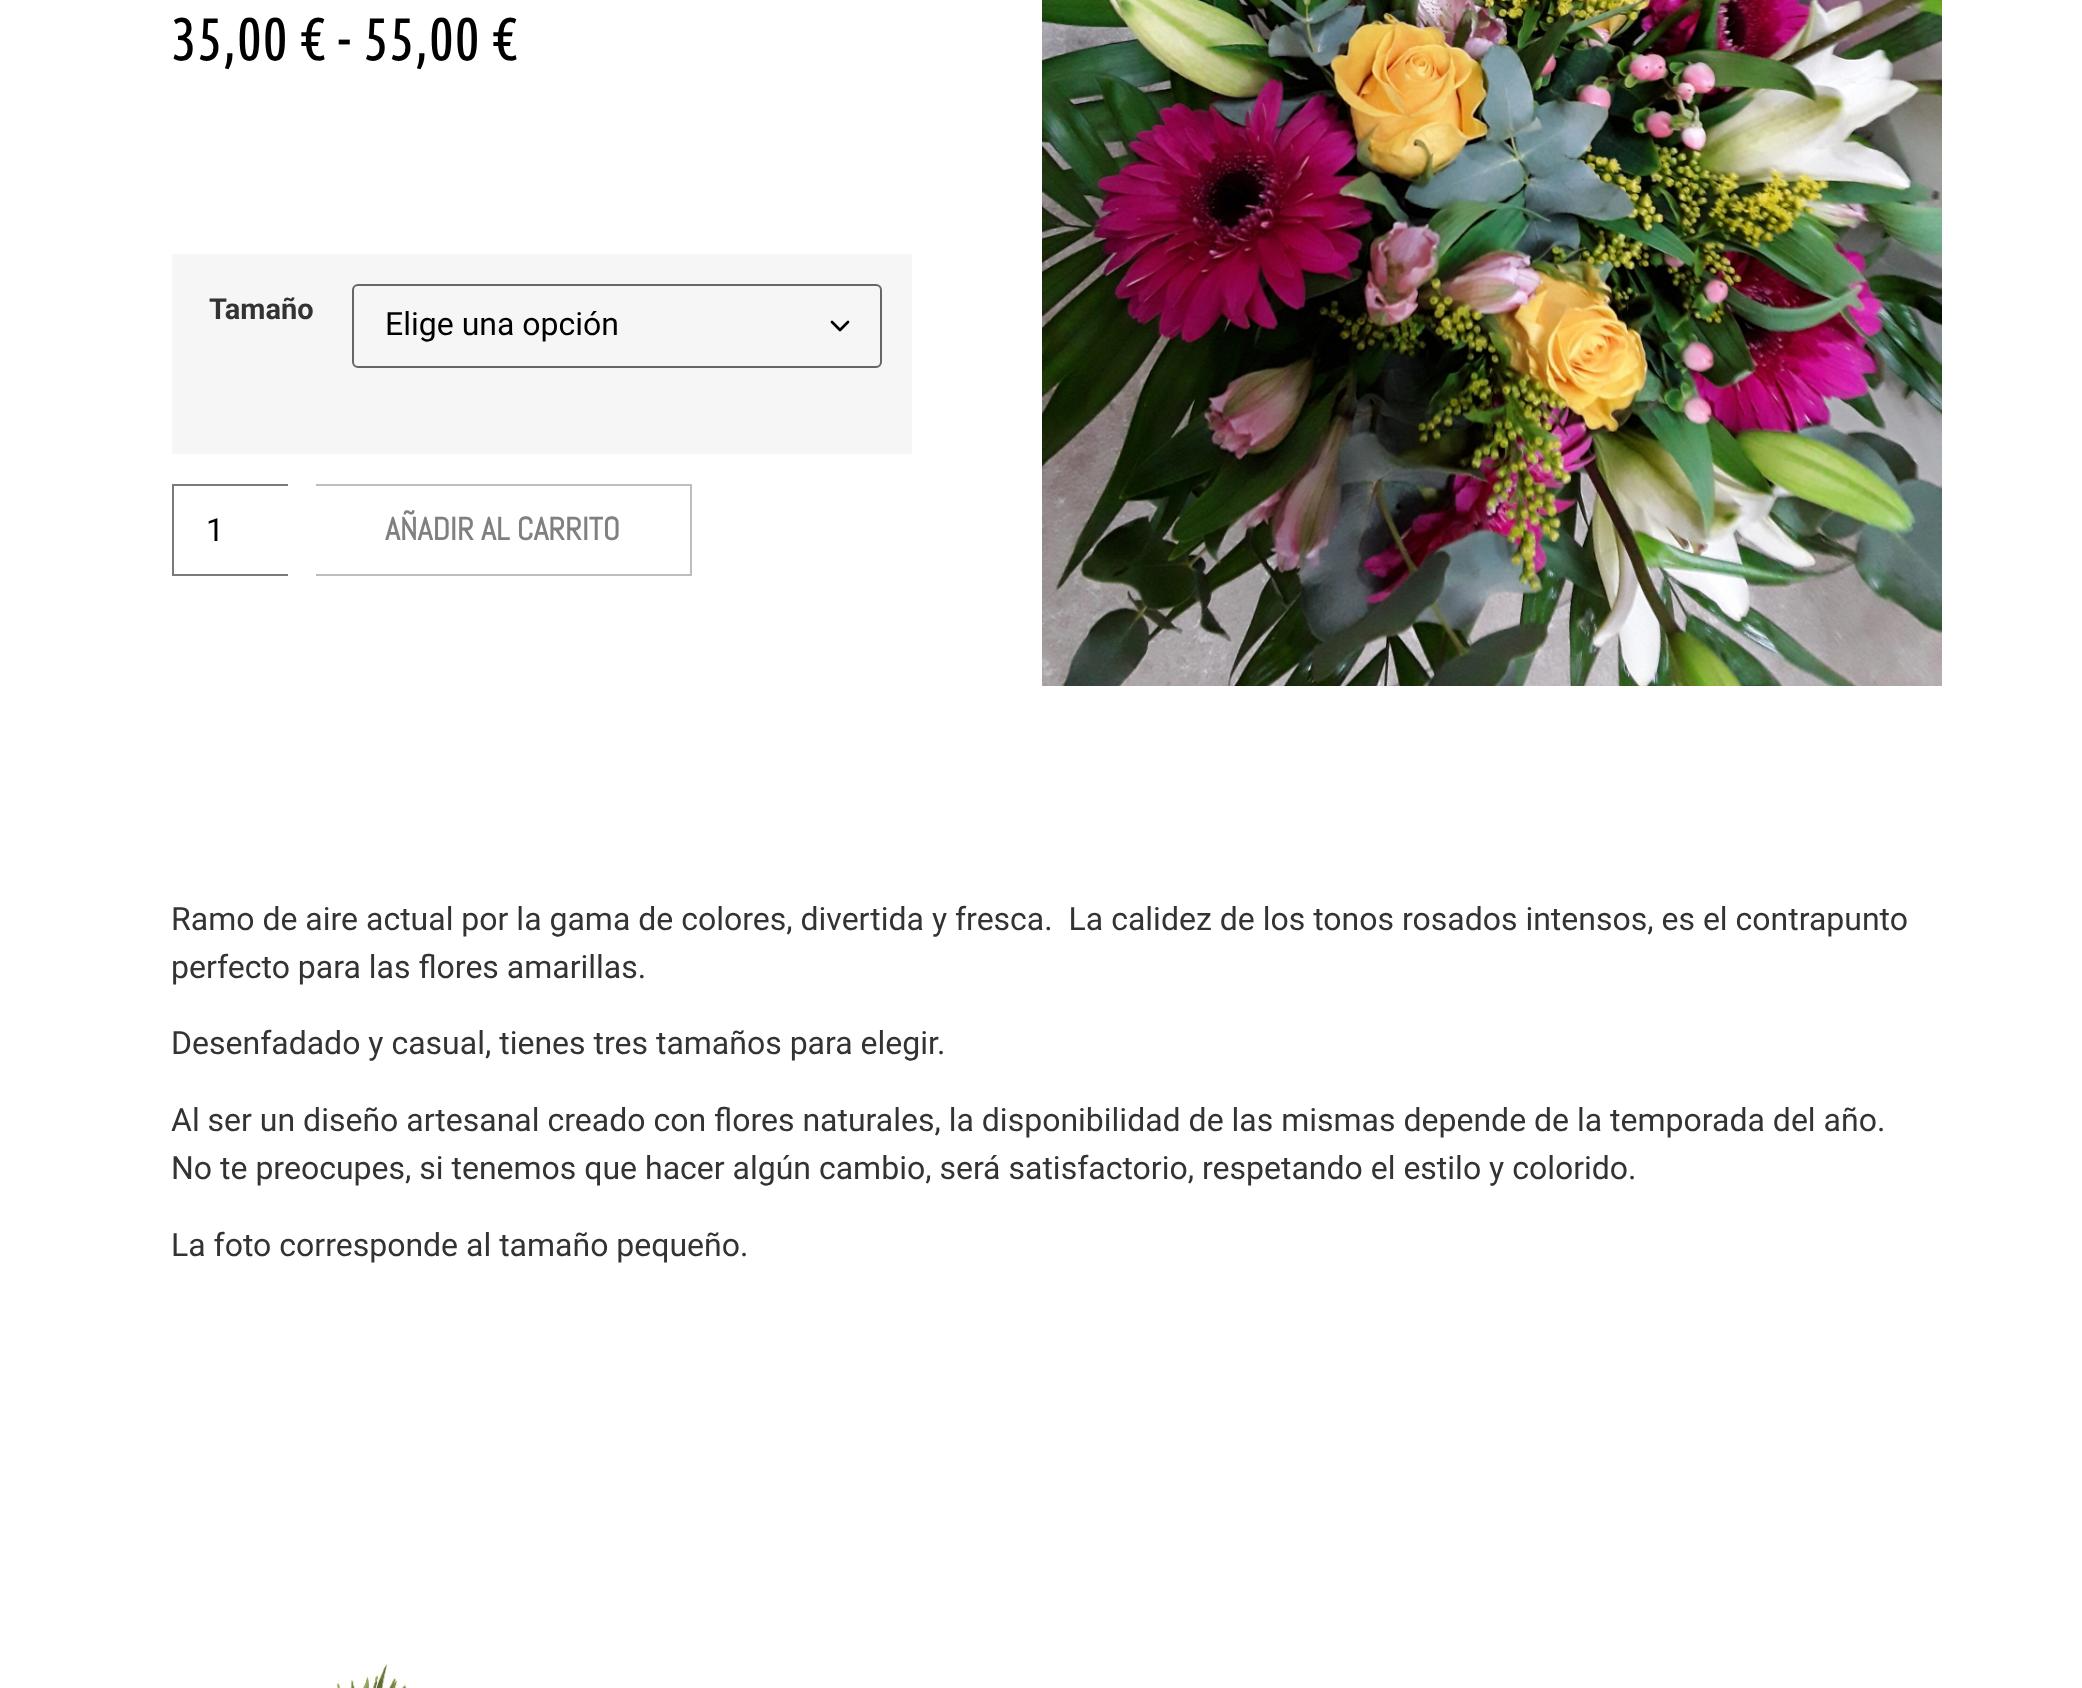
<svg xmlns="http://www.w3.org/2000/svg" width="2082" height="1688">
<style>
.a{font:60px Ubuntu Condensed;fill:#000}
.b{font:bold 29px Roboto;fill:#333}
.c{font:32px Roboto;fill:#000}
.d{font:bold 32px Abel;fill:#808080}
.e{font:32px Roboto;fill:#333}
</style>
<rect width="100%" height="100%" fill="#fff"/>
<path fill="#f6f6f6" d="M172 254h740v200H172z"/>
<path fill="none" stroke="#000" stroke-width="2.7" stroke-linecap="round" stroke-linejoin="round" d="M832 322l8 8l8-8"/>
<rect fill="none" stroke="#666" stroke-width="2" x="353" y="285" width="528" height="82" rx="5"/>
<path fill="#7a7a7a" d="M172 484h116v2H172z"/>
<path fill="#7a7a7a" d="M172 574h116v2H172z"/>
<path fill="#7a7a7a" d="M172 484h2v92H172z"/>
<path fill="#bdbdbd" d="M316 484h376v2H316z"/>
<path fill="#bdbdbd" d="M690 484h2v92H690z"/>
<path fill="#bdbdbd" d="M316 574h376v2H316z"/>
<image href="1.png" x="1042" y="0" width="900" height="686"/>
<image href="2.png" x="335" y="1664" width="72" height="24"/>
<text class="a" x="171" y="60">35,00 € - 55,00 €</text>
<text class="b" x="209" y="319">Tamaño</text>
<text class="c" x="385" y="335">Elige una opción</text>
<text class="c" x="206" y="541">1</text>
<text class="d" x="385" y="540">AÑADIR AL CARRITO</text>
<text class="e" xml:space="preserve" x="171" y="930">Ramo de aire actual por la gama de colores, divertida y fresca.  La calidez de los tonos rosados intensos, es el contrapunto</text>
<text class="e" x="171" y="978">perfecto para las flores amarillas.</text>
<text class="e" x="171" y="1054">Desenfadado y casual, tienes tres tamaños para elegir.</text>
<text class="e" x="171" y="1131">Al ser un diseño artesanal creado con flores naturales, la disponibilidad de las mismas depende de la temporada del año.</text>
<text class="e" x="171" y="1179">No te preocupes, si tenemos que hacer algún cambio, será satisfactorio, respetando el estilo y colorido.</text>
<text class="e" x="171" y="1256">La foto corresponde al tamaño pequeño.</text>
</svg>
